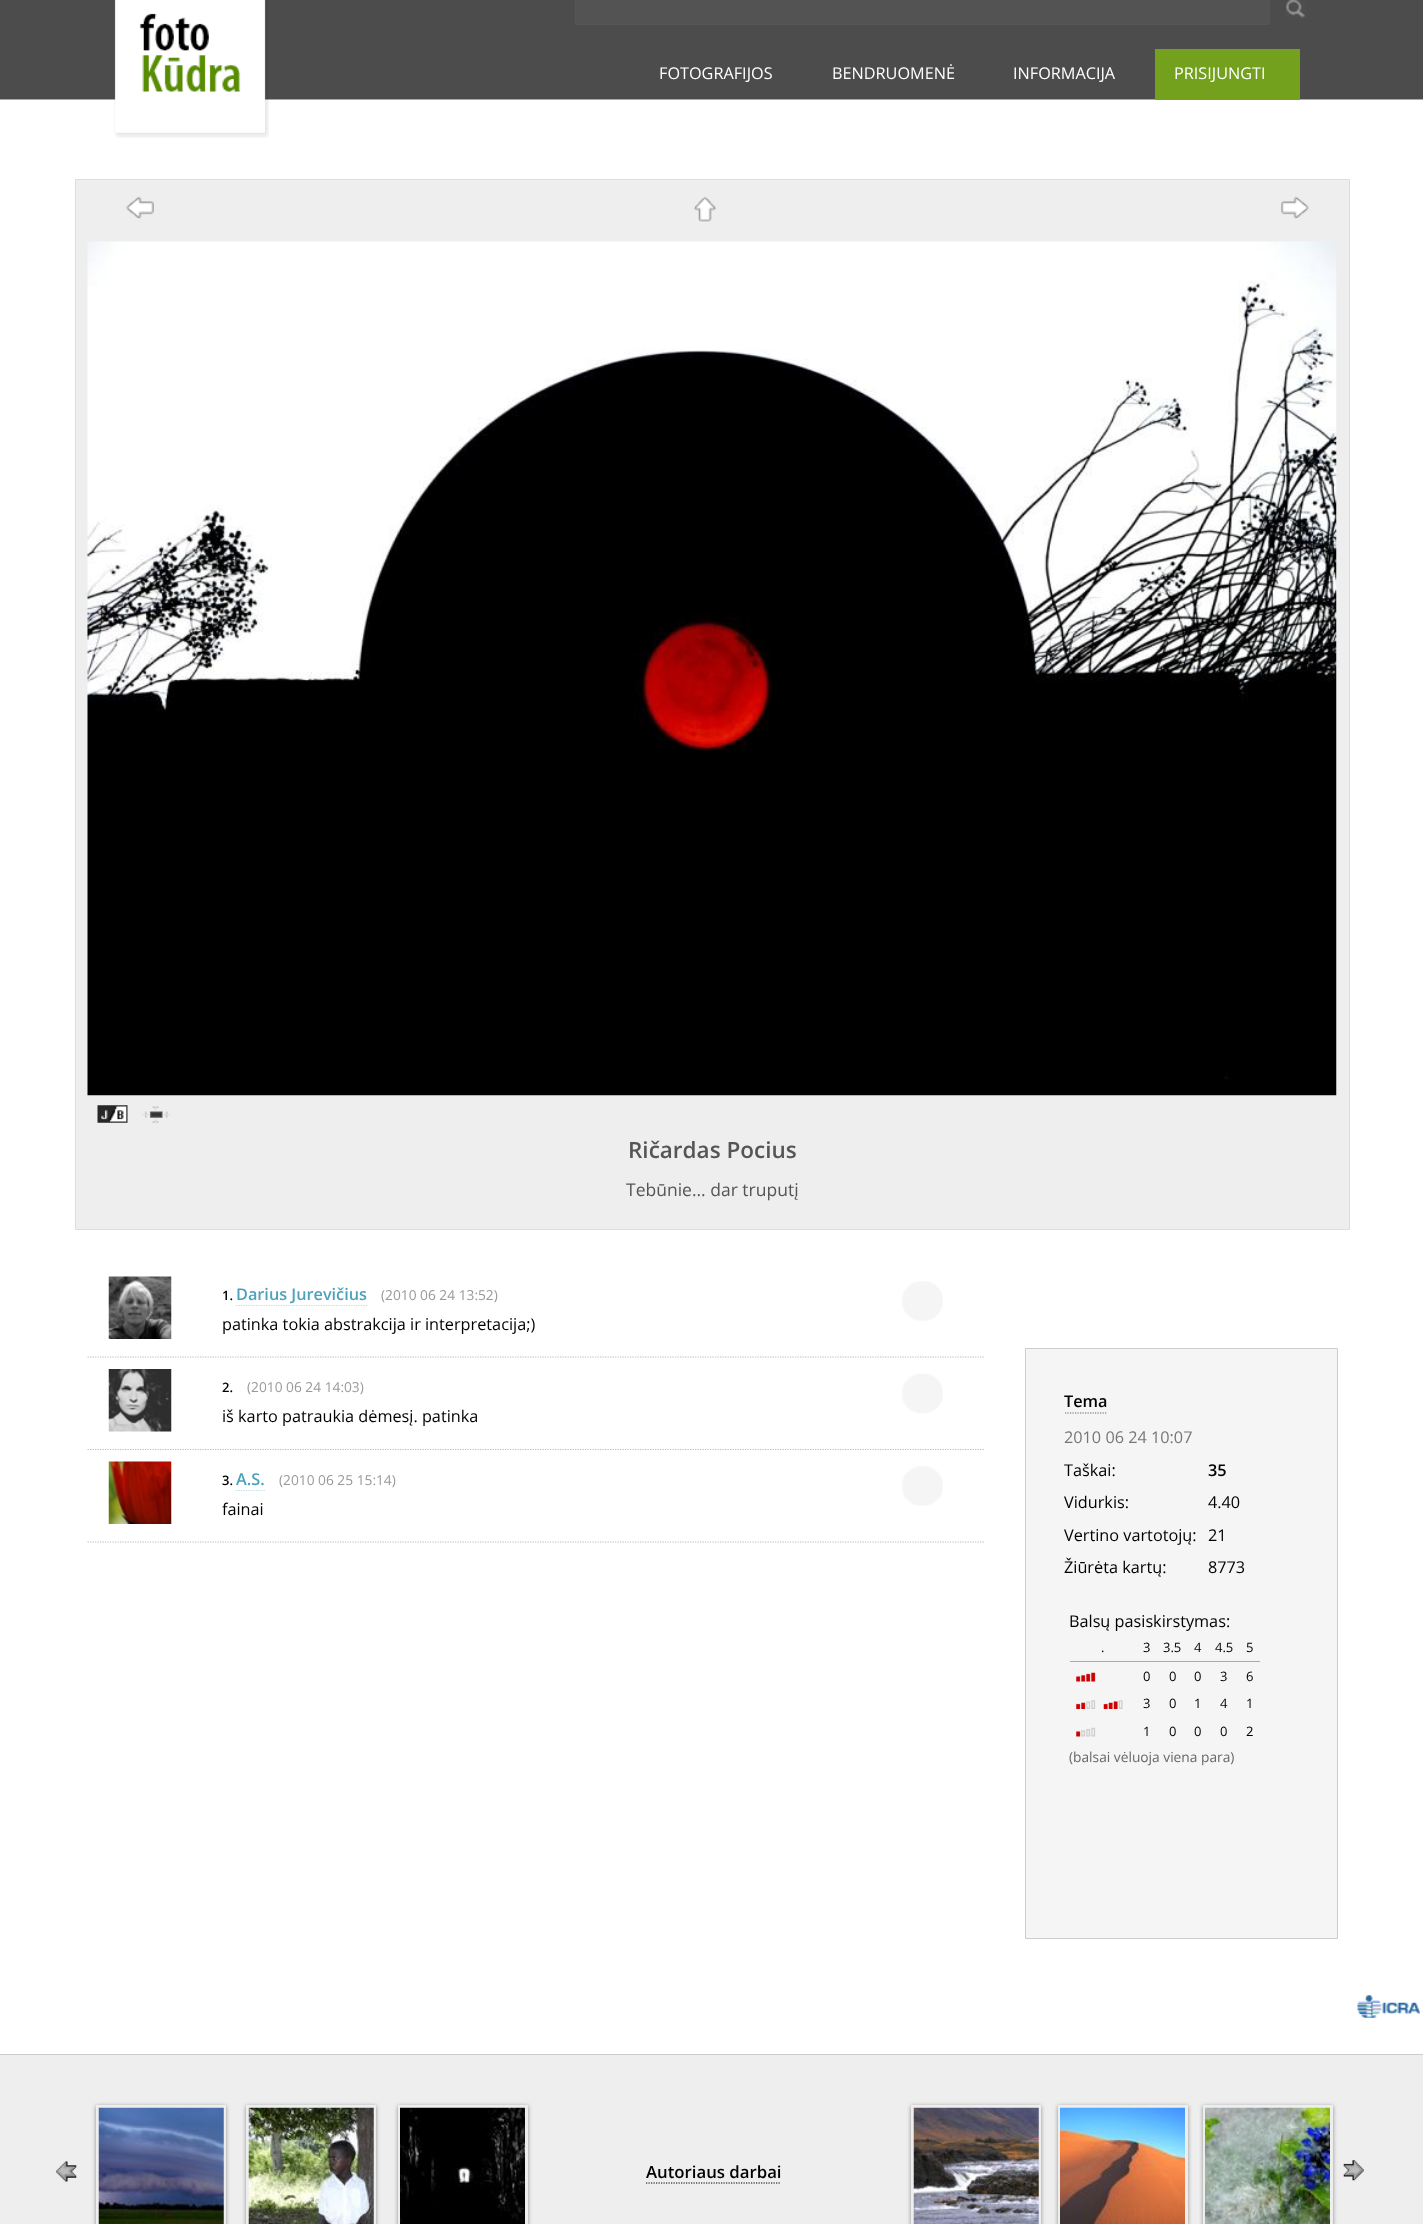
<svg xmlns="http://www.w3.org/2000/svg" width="1423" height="2224">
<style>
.a{font:16.25px Open Sans;fill:#fff}
.b{font:600 22.5px Open Sans;fill:#555}
.c{font:17.5px Open Sans;fill:#555}
.d{font:600 13px Open Sans;fill:#000}
.e{font:600 16.25px Open Sans;fill:#4da1bd}
.f{font:13.75px Open Sans;fill:#999}
.g{font:16.25px Open Sans;fill:#000}
.h{font:600 16.25px Open Sans;fill:#000}
.i{font:16.25px Open Sans;fill:#777}
.j{font:13px Open Sans;fill:#000}
.k{font:13.75px Open Sans;fill:#686868}
.l{font:600 16.75px Open Sans;fill:#000}
</style>
<defs>
<clipPath id="clip1"><path d="M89 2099h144v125h-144zm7 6h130v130h-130z" clip-rule="evenodd"/></clipPath>
<clipPath id="clip2"><path d="M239 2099h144v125h-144zm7 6h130v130h-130z" clip-rule="evenodd"/></clipPath>
<clipPath id="clip3"><path d="M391 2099h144v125h-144zm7 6h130v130h-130z" clip-rule="evenodd"/></clipPath>
<clipPath id="clip4"><path d="M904 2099h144v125h-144zm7 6h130v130h-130z" clip-rule="evenodd"/></clipPath>
<clipPath id="clip5"><path d="M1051 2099h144v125h-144zm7 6h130v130h-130z" clip-rule="evenodd"/></clipPath>
<clipPath id="clip6"><path d="M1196 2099h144v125h-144zm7 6h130v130h-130z" clip-rule="evenodd"/></clipPath>
</defs>
<rect width="100%" height="100%" fill="#fff"/>
<path fill="#4c4c4c" d="M0 0h1423v99H0z"/>
<path fill="#535353" stroke="#555" d="M575.5 -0.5h694v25H575.5z"/>
<image href="1.png" x="1286" y="0" width="20" height="18"/>
<path fill="#aaa" d="M0 99h1423v1H0z"/>
<image href="2.png" x="114" y="0" width="155" height="138"/>
<path fill="#73a11d" d="M1155 49h145v51H1155z"/>
<path fill="#eee" stroke="#ddd" d="M75.5 179.5h1274v1050H75.5z"/>
<image href="3.png" x="126" y="196" width="28" height="23"/>
<image href="4.png" x="693" y="196" width="24" height="27"/>
<image href="5.png" x="1281" y="196" width="28" height="23"/>
<image href="6.png" x="87" y="241" width="1250" height="855"/>
<image href="7.png" x="97" y="1105" width="31" height="18"/>
<image href="8.png" x="142" y="1106" width="28" height="17"/>
<image href="9.png" x="108" y="1276" width="64" height="63"/>
<path fill="none" stroke="#bbdde8" stroke-width="1.2" stroke-dasharray="1.25 1.25" d="M236 1305.5h131.5"/>
<image href="10.png" x="902" y="1281" width="41" height="40"/>
<path fill="none" stroke="#bbb" stroke-width="1.2" stroke-dasharray="1.25 1.25" d="M87.5 1357h897.5"/>
<image href="11.png" x="108" y="1369" width="64" height="63"/>
<image href="12.png" x="902" y="1373" width="41" height="41"/>
<path fill="none" stroke="#bbb" stroke-width="1.2" stroke-dasharray="1.25 1.25" d="M87.5 1449.5h897.5"/>
<image href="13.png" x="108" y="1461" width="64" height="63"/>
<path fill="none" stroke="#bbdde8" stroke-width="1.2" stroke-dasharray="1.25 1.25" d="M236 1490.5h29"/>
<image href="10.png" x="902" y="1466" width="41" height="40"/>
<path fill="none" stroke="#bbb" stroke-width="1.2" stroke-dasharray="1.25 1.25" d="M87.5 1542h897.5"/>
<path fill="#f5f5f5" stroke="#ccc" d="M1025.5 1348.5h312v590H1025.5z"/>
<path fill="none" stroke="#666" stroke-width="1.2" stroke-dasharray="1.25 1.25" d="M1065 1413h42.5"/>
<path fill="#aaa" d="M1070 1661h190v1H1070z"/>
<image href="14.png" x="1076" y="1672" width="20" height="10"/>
<image href="15.png" x="1076" y="1700" width="20" height="9"/>
<image href="16.png" x="1103" y="1700" width="20" height="9"/>
<image href="17.png" x="1076" y="1727" width="20" height="10"/>
<image href="18.png" x="1357" y="1995" width="63" height="23"/>
<path fill="#eee" d="M0 2055h1423v169H0z"/>
<path fill="#ccc" d="M0 2054h1423v1H0z"/>
<image href="19.png" x="56" y="2161" width="21" height="21"/>
<g clip-path="url(#clip1)">
<path fill="#00000066" filter="blur(2px)" d="M96 2106h130v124H96z"/>
</g>
<g clip-path="url(#clip2)">
<path fill="#00000066" filter="blur(2px)" d="M246 2106h130v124H246z"/>
</g>
<g clip-path="url(#clip3)">
<path fill="#00000066" filter="blur(2px)" d="M398 2106h130v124H398z"/>
</g>
<image href="20.png" x="98" y="2107" width="126" height="117"/>
<image href="21.png" x="248" y="2107" width="126" height="117"/>
<image href="22.png" x="400" y="2107" width="125" height="117"/>
<path fill="none" stroke="#000" stroke-width="1.2" stroke-dasharray="1.25 1.25" d="M646 2183h134"/>
<g clip-path="url(#clip4)">
<path fill="#00000066" filter="blur(2px)" d="M911 2106h130v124H911z"/>
</g>
<g clip-path="url(#clip5)">
<path fill="#00000066" filter="blur(2px)" d="M1058 2106h130v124H1058z"/>
</g>
<g clip-path="url(#clip6)">
<path fill="#00000066" filter="blur(2px)" d="M1203 2106h130v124H1203z"/>
</g>
<image href="23.png" x="913" y="2107" width="126" height="117"/>
<image href="24.png" x="1060" y="2107" width="125" height="117"/>
<image href="25.png" x="1205" y="2107" width="125" height="117"/>
<image href="26.png" x="1343" y="2160" width="21" height="21"/>
<text class="a" x="659" y="79">FOTOGRAFIJOS</text>
<text class="a" x="832" y="79">BENDRUOMENĖ</text>
<text class="a" x="1013" y="79">INFORMACIJA</text>
<text class="a" x="1174" y="79">PRISIJUNGTI</text>
<text class="b" x="628" y="1158">Ričardas Pocius</text>
<text class="c" x="626" y="1196">Tebūnie... dar truputį</text>
<text class="d" x="222" y="1300">1.</text>
<text class="e" x="236" y="1300">Darius Jurevičius</text>
<text class="f" x="381" y="1300">(2010 06 24 13:52)</text>
<text class="g" x="222" y="1330">patinka tokia abstrakcija ir interpretacija;)</text>
<text class="d" x="222" y="1392">2.</text>
<text class="f" x="247" y="1392">(2010 06 24 14:03)</text>
<text class="g" x="222" y="1422">iš karto patraukia dėmesį. patinka</text>
<text class="d" x="222" y="1485">3.</text>
<text class="e" x="236" y="1485">A.S.</text>
<text class="f" x="279" y="1485">(2010 06 25 15:14)</text>
<text class="g" x="222" y="1515">fainai</text>
<text class="h" x="1064" y="1407">Tema</text>
<text class="i" x="1064" y="1443">2010 06 24 10:07</text>
<text class="g" x="1064" y="1476">Taškai:</text>
<text class="h" x="1208" y="1476">35</text>
<text class="g" x="1064" y="1508">Vidurkis:</text>
<text class="g" x="1208" y="1508">4.40</text>
<text class="g" x="1064" y="1541">Vertino vartotojų:</text>
<text class="g" x="1208" y="1541">21</text>
<text class="g" x="1064" y="1573">Žiūrėta kartų:</text>
<text class="g" x="1208" y="1573">8773</text>
<text class="g" x="1069" y="1627">Balsų pasiskirstymas:</text>
<text class="j" x="1101" y="1652">.</text>
<text class="j" x="1143" y="1652">3</text>
<text class="j" x="1163" y="1652">3.5</text>
<text class="j" x="1194" y="1652">4</text>
<text class="j" x="1215" y="1652">4.5</text>
<text class="j" x="1246" y="1652">5</text>
<text class="j" x="1143" y="1681">0</text>
<text class="j" x="1169" y="1681">0</text>
<text class="j" x="1194" y="1681">0</text>
<text class="j" x="1220" y="1681">3</text>
<text class="j" x="1246" y="1681">6</text>
<text class="j" x="1143" y="1708">3</text>
<text class="j" x="1169" y="1708">0</text>
<text class="j" x="1194" y="1708">1</text>
<text class="j" x="1220" y="1708">4</text>
<text class="j" x="1246" y="1708">1</text>
<text class="j" x="1143" y="1736">1</text>
<text class="j" x="1169" y="1736">0</text>
<text class="j" x="1194" y="1736">0</text>
<text class="j" x="1220" y="1736">0</text>
<text class="j" x="1246" y="1736">2</text>
<text class="k" x="1069" y="1762">(balsai vėluoja viena para)</text>
<text class="l" x="646" y="2178">Autoriaus darbai</text>
</svg>
